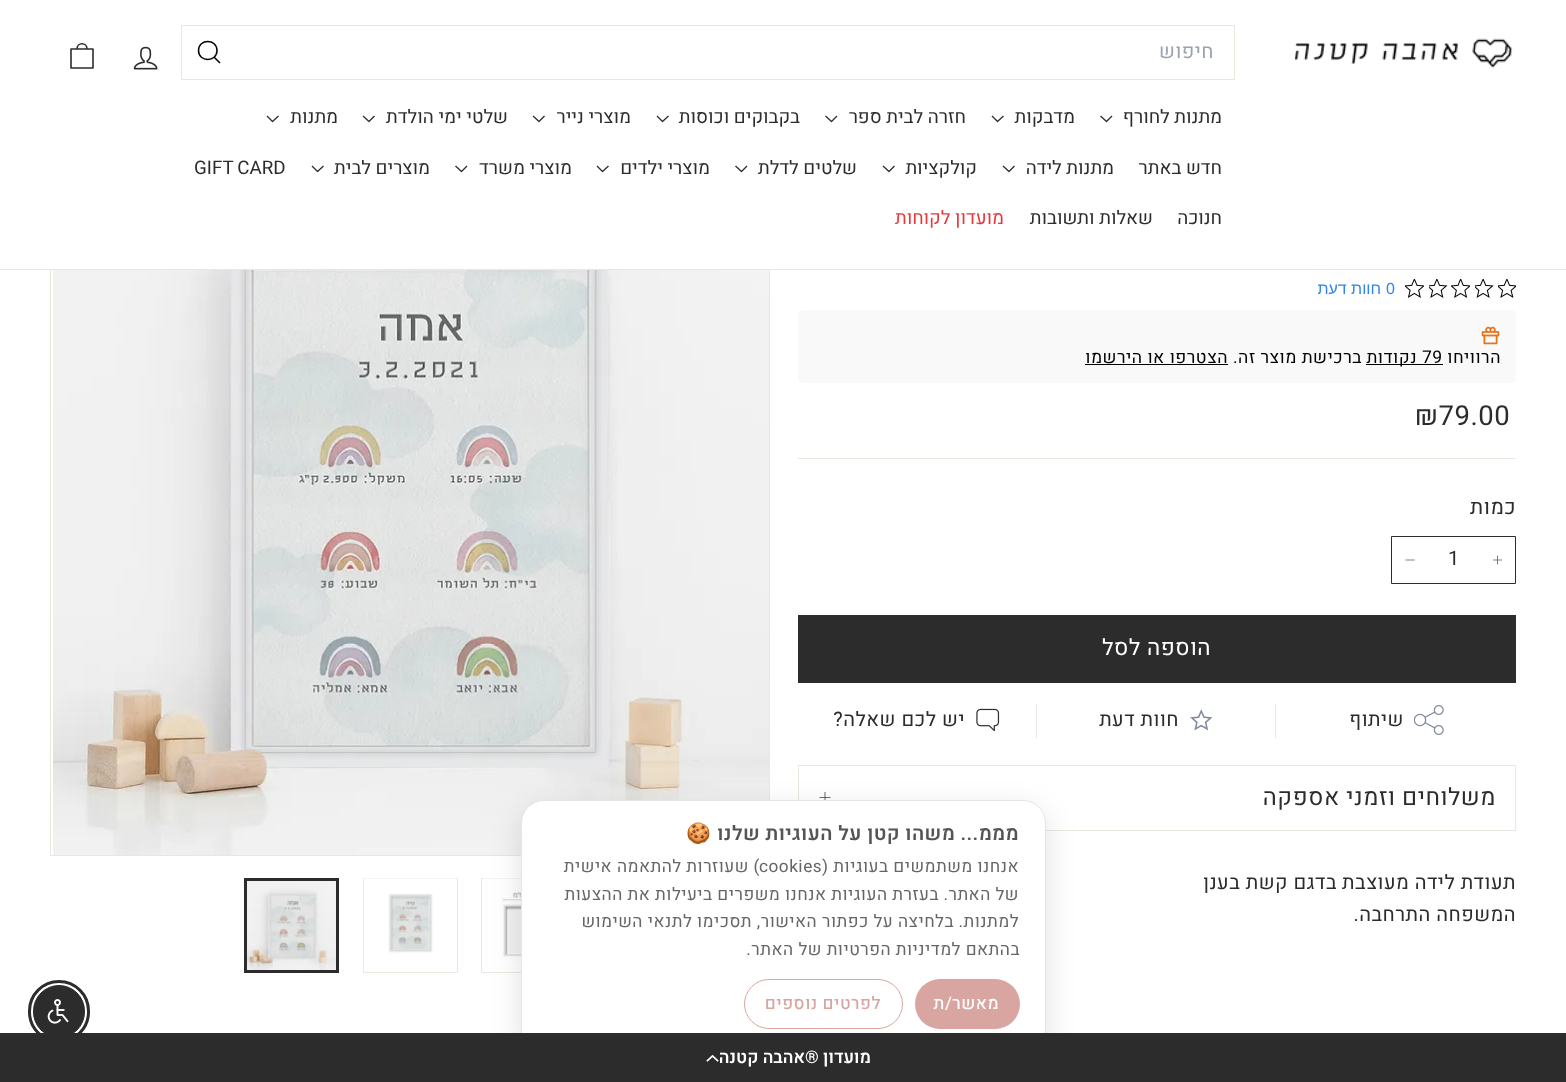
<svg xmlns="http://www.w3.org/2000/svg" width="1566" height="1082">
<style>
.a{font:20px Heebo;letter-spacing:0.5px;direction:rtl;fill:#9ca3af}
.b{font:18.75px Heebo;direction:rtl;fill:#2c2c2c}
.c{font:18.75px Heebo;fill:#2c2c2c}
.d{font:18.75px Heebo;direction:rtl;fill:#e5383b}
.e{font:16px Liberation Sans;fill:#2f84ed}
.f{font:16px Liberation Sans;direction:rtl;fill:#2f84ed}
.g{font:17.5px Heebo;letter-spacing:0.5px;direction:rtl;fill:#000}
.h{font:17.5px Heebo;letter-spacing:0.5px;fill:#000}
.i{font:27.5px Heebo;letter-spacing:0.5px;fill:#2c2c2c}
.j{font:21px Heebo;letter-spacing:0.5px;direction:rtl;fill:#2c2c2c}
.k{font:20px Heebo;letter-spacing:0.5px;fill:#2c2c2c}
.l{font:22.5px Heebo;letter-spacing:0.5px;direction:rtl;fill:#fff}
.m{font:20px Heebo;letter-spacing:0.5px;direction:rtl;fill:#2c2c2c}
.n{font:23.75px Heebo;letter-spacing:0.6px;direction:rtl;fill:#2c2c2c}
.o{font:600 20px Heebo;letter-spacing:0.4px;direction:rtl;fill:#555}
.p{font:bold 20px Noto Color Emoji;letter-spacing:0.4px;direction:rtl;fill:#555}
.q{font:17.2px Heebo;letter-spacing:0.5px;direction:rtl;fill:#666}
.r{font:17.2px Heebo;letter-spacing:0.5px;fill:#666}
.s{font:500 17.2px Heebo;letter-spacing:0.5px;direction:rtl;fill:#fff}
.t{font:500 17.2px Heebo;letter-spacing:0.5px;direction:rtl;fill:#d9a5a0}
.u{font:600 17.5px Heebo;direction:rtl;fill:#fff}
</style>
<rect width="100%" height="100%" fill="#fff"/>
<path fill="none" stroke="#e8e8e1" d="M50.5 136.5h719v719H50.5z"/>
<path fill="#fff" d="M50 136h720v133H50z"/>
<path fill="#e5e7eb" d="M0 269h1566v1H0z"/>
<image href="1.png" x="1294" y="38" width="219" height="30"/>
<path fill="none" stroke="#e8e8e1" d="M181.5 25.5h1053v54H181.5z"/>
<path fill="none" stroke="#000" stroke-width="1.5" stroke-linejoin="round" d="M217 50.5c0 12-18.5 12-18.5 0c0-12 18.5-12 18.5 0m3 12.5l-6-6"/>
<path fill="none" stroke="#2c2c2c" stroke-width="1.3" stroke-linejoin="round" d="M1100.5 116l6 5.5l5.5-5.5"/>
<path fill="none" stroke="#2c2c2c" stroke-width="1.3" stroke-linejoin="round" d="M992 116l5.5 5.5l6-5.5"/>
<path fill="none" stroke="#2c2c2c" stroke-width="1.3" stroke-linejoin="round" d="M825.5 116l6 5.5l5.5-5.5"/>
<path fill="none" stroke="#2c2c2c" stroke-width="1.3" stroke-linejoin="round" d="M657 116l5.5 5.5l6-5.5"/>
<path fill="none" stroke="#2c2c2c" stroke-width="1.3" stroke-linejoin="round" d="M533 116l6 5.5l5.5-5.5"/>
<path fill="none" stroke="#2c2c2c" stroke-width="1.3" stroke-linejoin="round" d="M363 116l6 5.5l5.5-5.5"/>
<path fill="none" stroke="#2c2c2c" stroke-width="1.3" stroke-linejoin="round" d="M267 116l5.5 5.5l6-5.5"/>
<path fill="none" stroke="#2c2c2c" stroke-width="1.3" stroke-linejoin="round" d="M1003 166l6 5.5l5.5-5.5"/>
<path fill="none" stroke="#2c2c2c" stroke-width="1.3" stroke-linejoin="round" d="M883 166l6 5.5l5.5-5.5"/>
<path fill="none" stroke="#2c2c2c" stroke-width="1.3" stroke-linejoin="round" d="M735.5 166l6 5.5l5.5-5.5"/>
<path fill="none" stroke="#2c2c2c" stroke-width="1.3" stroke-linejoin="round" d="M597 166l5.5 5.5l6-5.5"/>
<path fill="none" stroke="#2c2c2c" stroke-width="1.3" stroke-linejoin="round" d="M455.5 166l6 5.5l5.5-5.5"/>
<path fill="none" stroke="#2c2c2c" stroke-width="1.3" stroke-linejoin="round" d="M312 166l5.5 5.5l6-5.5"/>
<image href="2.png" x="133" y="46" width="25" height="24"/>
<path fill="none" stroke="#2c2c2c" stroke-width="1.6" stroke-linejoin="round" d="M77 49c0-7 10-7 10 0m-16 0h22v19h-22z"/>
<image href="3.png" x="1498" y="279" width="18" height="19"/>
<image href="4.png" x="1475" y="279" width="19" height="19"/>
<image href="5.png" x="1451" y="279" width="19" height="19"/>
<image href="6.png" x="1429" y="279" width="19" height="19"/>
<image href="7.png" x="1405" y="279" width="19" height="19"/>
<rect fill="#f9f9f9" x="798" y="310" width="718" height="73" rx="5"/>
<image href="8.png" x="1481" y="326" width="19" height="19"/>
<path fill="#000" d="M1366 364h77v1H1366z"/>
<path fill="#000" d="M1085 364h143v1H1085z"/>
<path fill="#e8e8e1" d="M798 458h718v1H798z"/>
<path fill="none" stroke="#2c2c2c" d="M1391.5 536.5h124v47H1391.5z"/>
<path fill="none" stroke="#2c2c2c" stroke-width="0.6" stroke-linejoin="round" d="M1497.5 555.5v9m4.5-4.5h-9"/>
<path fill="none" stroke="#2c2c2c" stroke-width="0.6" stroke-linejoin="round" d="M1414.5 560h-9"/>
<path fill="#2c2c2c" d="M798 615h718v68H798z"/>
<image href="9.png" x="1414" y="705" width="30" height="30"/>
<path fill="#e5e7eb" d="M1275 704h1v34H1275z"/>
<path fill="#e5e7eb" d="M1036 704h1v34H1036z"/>
<image href="10.png" x="1190" y="709" width="23" height="22"/>
<image href="11.png" x="976" y="708" width="24" height="24"/>
<path fill="none" stroke="#e8e8e1" d="M798.5 765.5h717v65H798.5z"/>
<path fill="none" stroke="#2c2c2c" stroke-width="0.7" stroke-linejoin="round" d="M825 792v11m5.5-5.5h-11"/>
<image href="12.png" x="53" y="270" width="716" height="585"/>
<path fill="none" stroke="#e8e8e1" d="M481.5 878.5h94v94H481.5z"/>
<image href="13.png" x="482" y="878" width="39" height="93"/>
<path fill="none" stroke="#e8e8e1" d="M363.5 878.5h94v94H363.5z"/>
<image href="14.png" x="363" y="878" width="94" height="93"/>
<image href="15.png" x="247" y="881" width="89" height="89"/>
<path fill="none" stroke="#2c2c2c" stroke-width="3" d="M245.5 879.5h92v92H245.5z"/>
<rect fill="#0000001f" filter="blur(15.5px)" x="521" y="810" width="525" height="253" rx="23"/>
<rect fill="#fff" stroke="#e5e5e5" x="521.5" y="800.5" width="524" height="252" rx="22.5"/>
<rect fill="#d9a5a0" x="915" y="979" width="105" height="50" rx="25"/>
<rect fill="none" stroke="#d9a5a0" x="744.5" y="979.5" width="158" height="49" rx="24.5"/>
<rect fill="none" stroke="#2c2c2c" stroke-width="3" x="29.5" y="981.5" width="59" height="60" rx="29.5"/>
<rect fill="#2c2c2c" stroke="#2c2c2c" x="33.5" y="985.5" width="51" height="52" rx="25.5"/>
<image href="16.png" x="47" y="999" width="22" height="25"/>
<path fill="#2c2c2c" d="M0 1033h1566v49H0z"/>
<image href="17.png" x="706" y="1054" width="13" height="8"/>
<text class="a" x="1214" y="58">חיפוש</text>
<text class="b" x="1222" y="123">מתנות לחורף</text>
<text class="b" x="1075" y="123">מדבקות</text>
<text class="b" x="966" y="123">חזרה לבית ספר</text>
<text class="b" x="800" y="123">בקבוקים וכוסות</text>
<text class="b" x="631" y="123">מוצרי נייר</text>
<text class="b" x="508" y="123">שלטי ימי הולדת</text>
<text class="b" x="338" y="123">מתנות</text>
<text class="b" x="1222" y="174">חדש באתר</text>
<text class="b" x="1114" y="174">מתנות לידה</text>
<text class="b" x="977" y="174">קולקציות</text>
<text class="b" x="857" y="174">שלטים לדלת</text>
<text class="b" x="710" y="174">מוצרי ילדים</text>
<text class="b" x="572" y="174">מוצרי משרד</text>
<text class="b" x="430" y="174">מוצרים לבית</text>
<text class="c" x="194" y="174" word-spacing="-1">GIFT CARD</text>
<text class="b" x="1222" y="224">חנוכה</text>
<text class="b" x="1153" y="224">שאלות ותשובות</text>
<text class="d" x="1004" y="224">מועדון לקוחות</text>
<text class="e" x="1386" y="294">0</text>
<text class="f" x="1381" y="294">חוות דעת</text>
<text class="g" x="1501" y="363">הרוויחו</text>
<text class="h" x="1422" y="363">79</text>
<text class="g" x="1417" y="363">נקודות</text>
<text class="g" x="1362" y="363">ברכישת מוצר זה.</text>
<text class="g" x="1228" y="363">הצטרפו או הירשמו</text>
<text class="i" x="1415" y="425">₪79.00</text>
<text class="j" x="1516" y="514">כמות</text>
<text class="k" x="1448" y="565">1</text>
<text class="l" x="1211" y="655">הוספה לסל</text>
<text class="m" x="1404" y="726">שיתוף</text>
<text class="m" x="1179" y="726">חוות דעת</text>
<text class="m" x="965" y="726">יש לכם שאלה?</text>
<text class="n" x="1496" y="805">משלוחים וזמני אספקה</text>
<text class="m" x="1516" y="889">תעודת לידה מעוצבת</text>
<text class="m" x="1337" y="889">בדגם</text>
<text class="m" x="1288" y="889">קשת בענן</text>
<text class="m" x="1516" y="921">המשפחה התרחבה.</text>
<text class="o" x="1019" y="840">מממ... משהו קטן על העוגיות שלנו</text>
<text class="p" x="712" y="840">🍪</text>
<text class="q" x="1019" y="872">אנחנו משתמשים בעוגיות (</text>
<text class="r" x="759" y="872">cookies</text>
<text class="q" x="760" y="872">) שעוזרות להתאמה אישית</text>
<text class="q" x="1019" y="900">של האתר.</text>
<text class="q" x="939" y="900">בעזרת העוגיות אנחנו משפרים ביעילות את ההצעות</text>
<text class="q" x="1019" y="927">למתנות.</text>
<text class="q" x="954" y="927">בלחיצה על כפתור האישור, תסכימו לתנאי השימוש</text>
<text class="q" x="1020" y="955">בהתאם למדיניות הפרטיות של האתר.</text>
<text class="s" x="999" y="1009">מאשר/ת</text>
<text class="t" x="881" y="1009">לפרטים נוספים</text>
<text class="u" x="871" y="1063">מועדון ®אהבה קטנה</text>
</svg>
